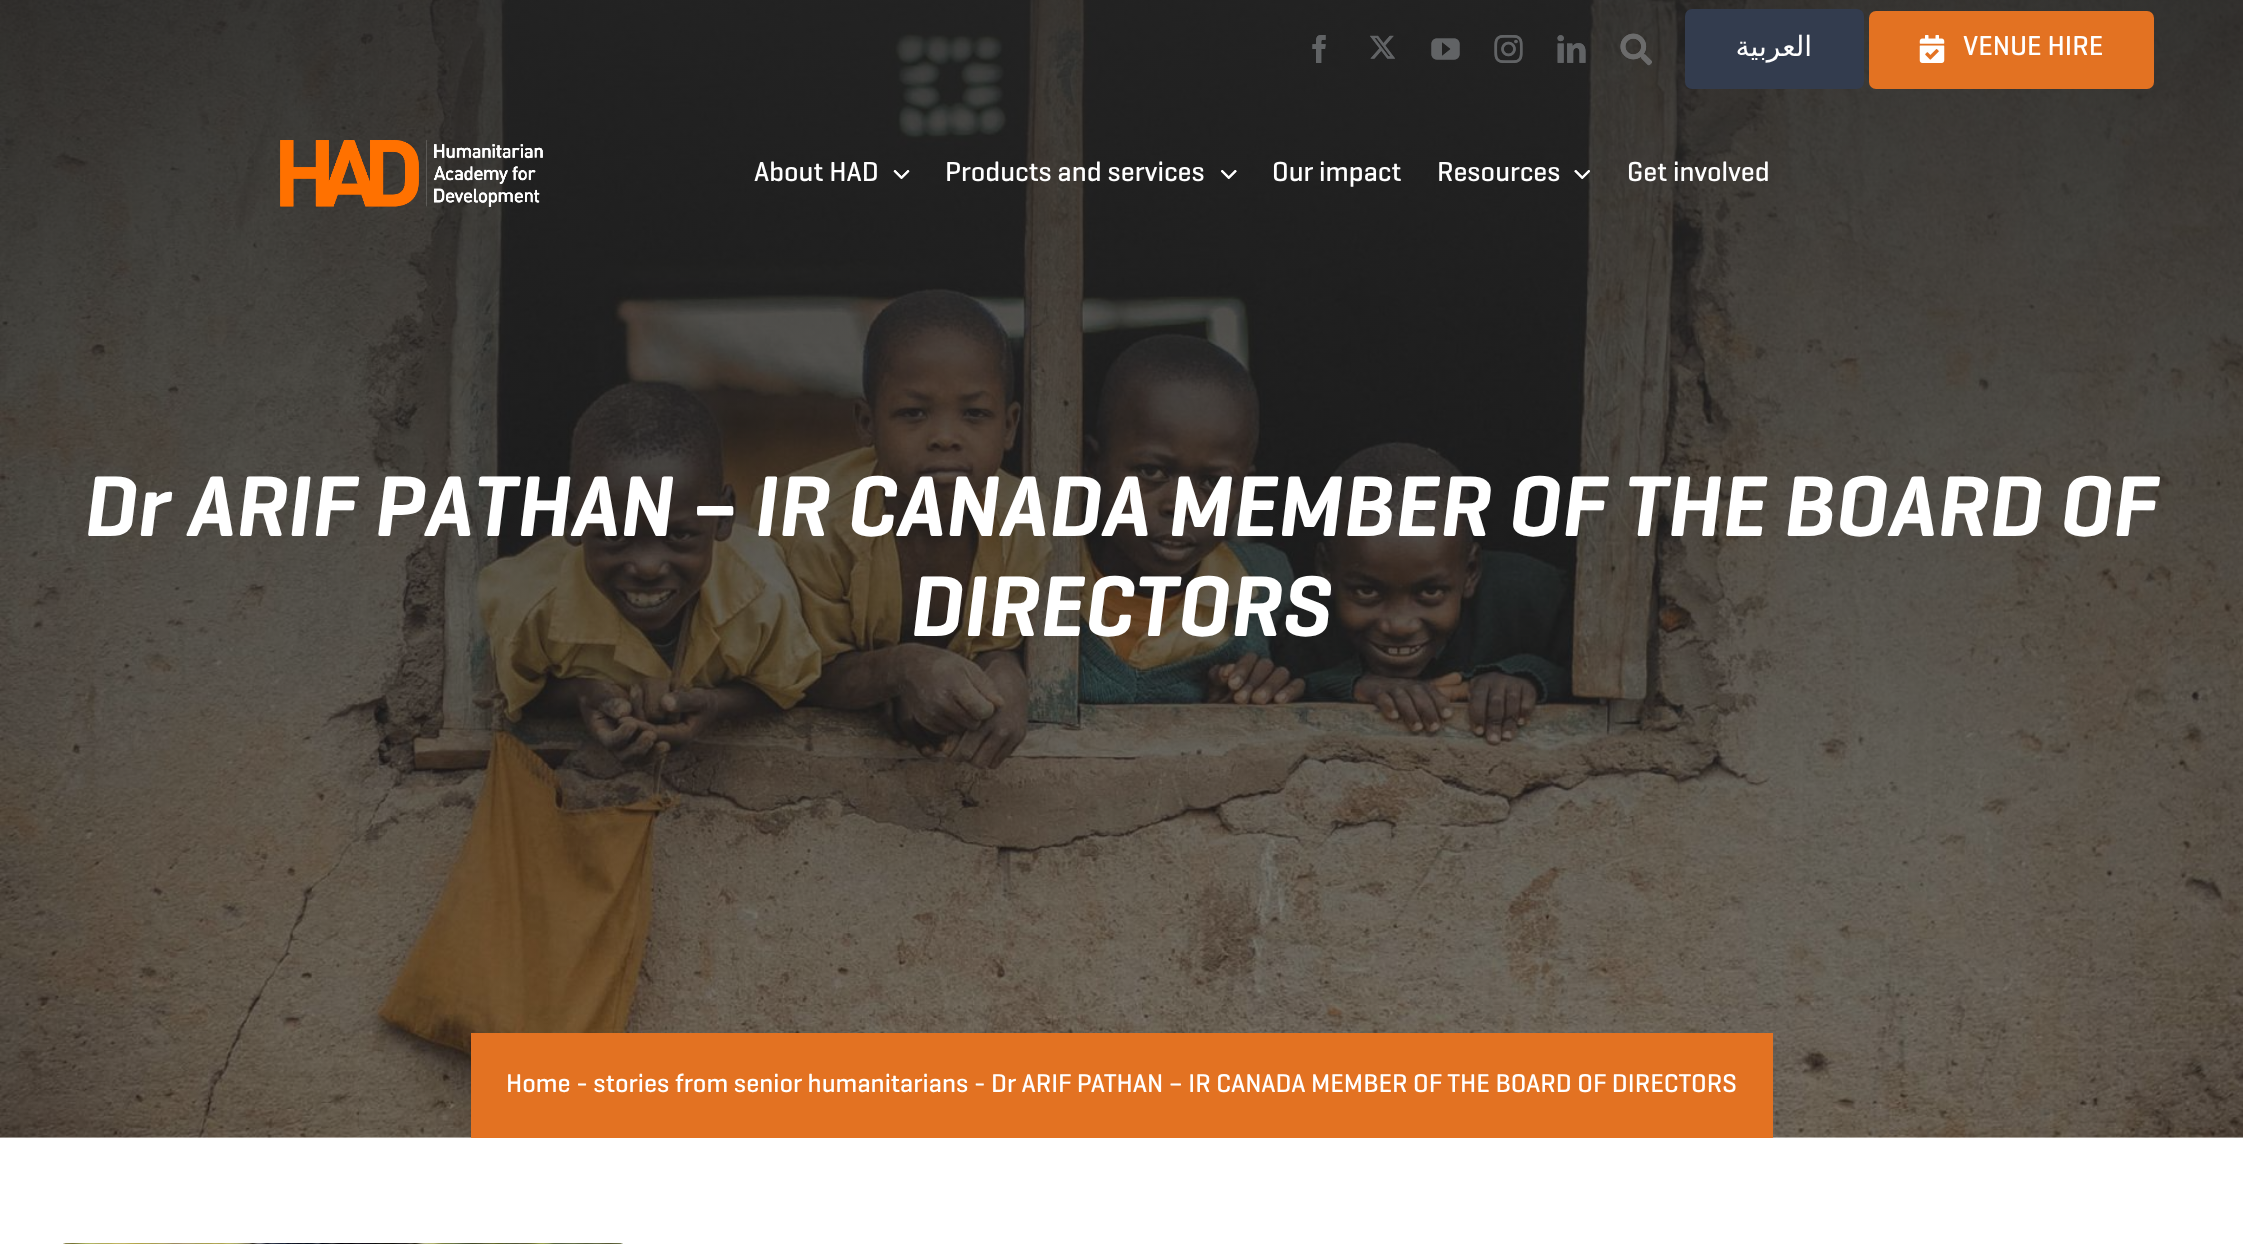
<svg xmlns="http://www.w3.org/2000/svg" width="2243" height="1244">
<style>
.a{font:28px DejaVu Sans;direction:rtl;fill:#fff}
.b{font:500 28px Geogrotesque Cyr;fill:#fff}
.c{font:italic 600 87.5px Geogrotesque;fill:#fff}
.d{font:500 26.25px Geogrotesque Cyr;fill:#fff}
</style>
<rect width="100%" height="100%" fill="#fff"/>
<image href="22.png" x="0" y="0" width="2243" height="1138"/>
<image href="12.png" x="1312" y="35" width="14" height="28"/>
<image href="1.png" x="1312" y="35" width="14" height="28"/>
<image href="13.png" x="1370" y="35" width="25" height="24"/>
<image href="2.png" x="1370" y="35" width="25" height="24"/>
<image href="14.png" x="1431" y="38" width="29" height="22"/>
<image href="3.png" x="1431" y="38" width="29" height="22"/>
<image href="15.png" x="1494" y="35" width="29" height="28"/>
<image href="4.png" x="1494" y="35" width="29" height="28"/>
<image href="16.png" x="1557" y="35" width="29" height="28"/>
<image href="5.png" x="1557" y="35" width="29" height="28"/>
<image href="17.png" x="1620" y="33" width="32" height="33"/>
<image href="6.png" x="1620" y="33" width="32" height="33"/>
<rect fill="#333c4e" x="1685" y="9" width="179" height="80" rx="7"/>
<rect fill="#e37222" x="1869" y="11" width="285" height="78" rx="7"/>
<image href="7.png" x="1919" y="35" width="26" height="28"/>
<image href="18.png" x="280" y="140" width="263" height="67"/>
<image href="8.png" x="280" y="140" width="263" height="67"/>
<image href="19.png" x="893" y="170" width="17" height="9"/>
<image href="9.png" x="893" y="170" width="17" height="9"/>
<image href="20.png" x="1221" y="170" width="16" height="9"/>
<image href="10.png" x="1221" y="170" width="16" height="9"/>
<image href="21.png" x="1574" y="170" width="16" height="9"/>
<image href="11.png" x="1574" y="170" width="16" height="9"/>
<path fill="#e37222" d="M471 1033h1302v105H471z"/>
<image href="23.png" x="63" y="1243" width="560" height="1"/>
<text class="a" x="1812" y="56">العربية</text>
<text class="b" x="1963" y="55">VENUE HIRE</text>
<text class="b" x="754" y="181">About HAD</text>
<text class="b" x="945" y="181">Products and services</text>
<text class="b" x="1272" y="181">Our impact</text>
<text class="b" x="1437" y="181">Resources</text>
<text class="b" x="1627" y="181">Get involved</text>
<text class="c" x="85" y="536">Dr ARIF PATHAN – IR CANADA MEMBER OF THE BOARD OF</text>
<text class="c" x="911" y="636">DIRECTORS</text>
<text class="d" x="506" y="1092">Home - stories from senior humanitarians - Dr ARIF PATHAN – IR CANADA MEMBER OF THE BOARD OF DIRECTORS</text>
</svg>
